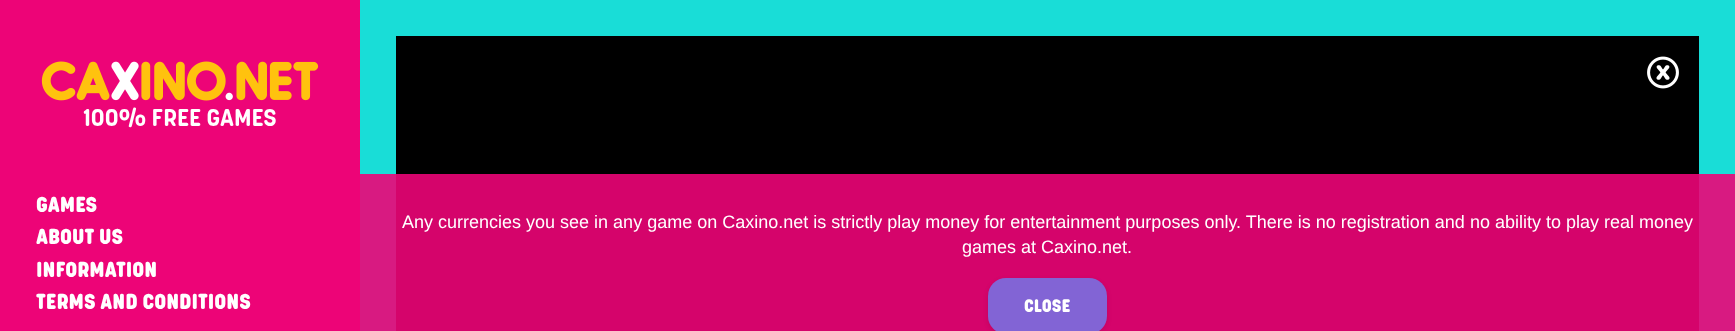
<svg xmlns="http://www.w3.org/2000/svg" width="1735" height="331">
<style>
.a{font:bold 24.25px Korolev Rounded;fill:#fff}
.b{font:900 21.5px Korolev Rounded;fill:#fff}
.c{font:18px Liberation Sans;fill:#fff}
.d{font:900 18px Korolev Rounded;fill:#fff}
</style>
<rect width="100%" height="100%" fill="#ed0477"/>
<image href="1.png" x="41" y="61" width="278" height="40"/>
<path fill="#19ddd7" d="M360 0h1375v174H360z"/>
<path fill="#d81a81" d="M360 174h1375v157H360z"/>
<path fill="#000" d="M396 36h1303v138H396z"/>
<path fill="#d5046b" d="M396 174h1303v157H396z"/>
<image href="2.png" x="1647" y="56" width="32" height="33"/>
<rect fill="#0000001a" filter="blur(2.5px)" x="988" y="280" width="119" height="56" rx="18"/>
<rect fill="#8264d5" x="988" y="278" width="119" height="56" rx="18"/>
<text class="a" x="83" y="126">100% FREE GAMES</text>
<text class="b" x="36" y="212">GAMES</text>
<text class="b" x="36" y="244">ABOUT US</text>
<text class="b" x="36" y="277">INFORMATION</text>
<text class="b" x="36" y="309">TERMS AND CONDITIONS</text>
<text class="c" x="402" y="228">Any currencies you see in any game on Caxino.net is strictly play money for entertainment purposes only. There is no registration and no ability to play real money</text>
<text class="c" x="962" y="253">games at Caxino.net.</text>
<text class="d" x="1024" y="312">CLOSE</text>
</svg>
